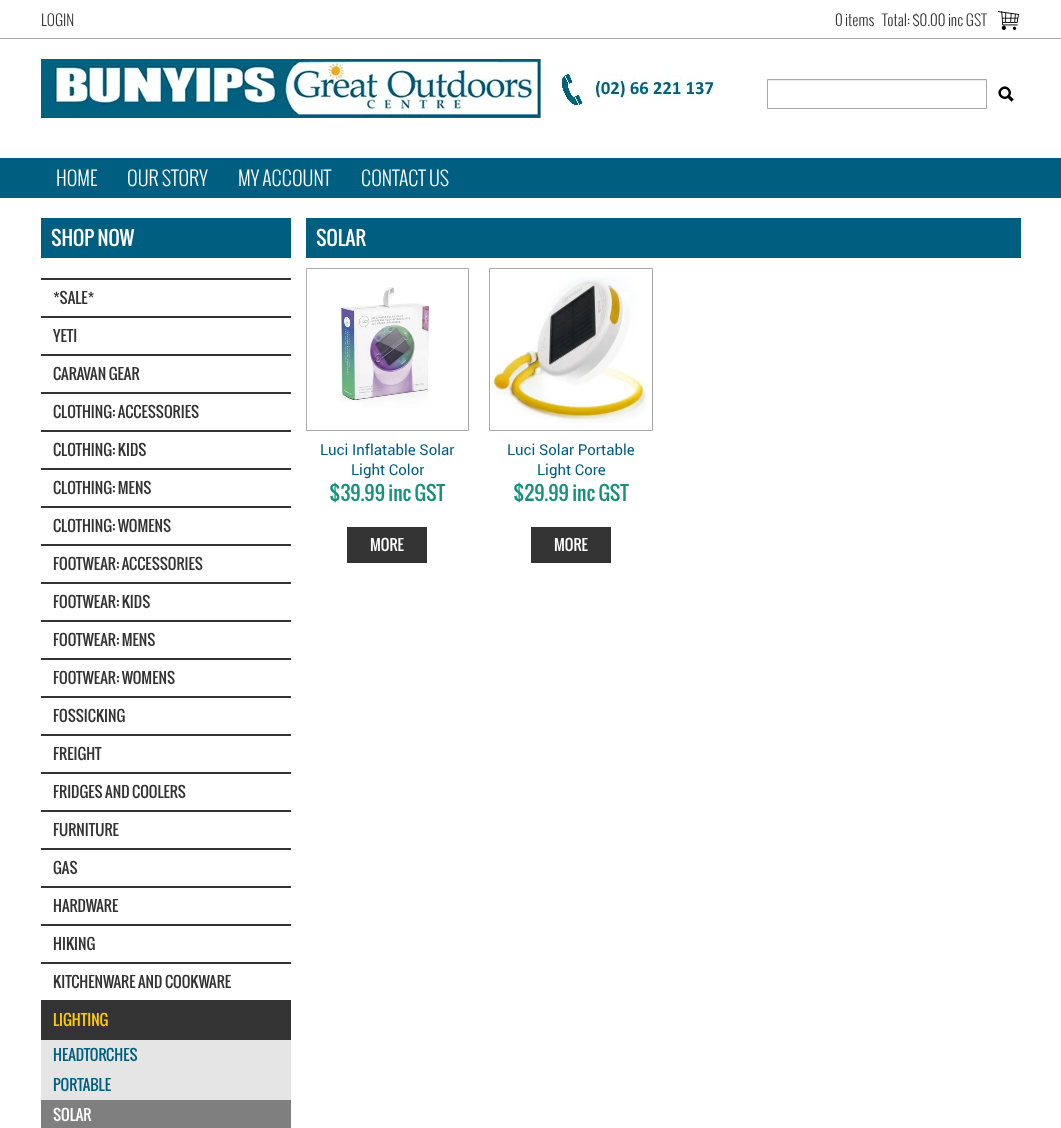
<svg xmlns="http://www.w3.org/2000/svg" width="1061" height="1128">
<style>
.a{font:300 15px Oswald;fill:#333}
.b{font:300 19.5px Oswald;fill:#fff}
.c{font:19.5px Oswald;fill:#fff}
.d{font:15px Oswald;fill:#333}
.e{font:15px Oswald;fill:#ffca09}
.f{font:15px Oswald;fill:#005e80}
.g{font:15px Oswald;fill:#fff}
.h{font:15px Roboto;fill:#005e80}
.i{font:19.5px Oswald;fill:#159279}
</style>
<rect width="100%" height="100%" fill="#fff"/>
<path fill="#a6a8ab" d="M0 38h1061v1H0z"/>
<image href="1.png" x="998" y="11" width="21" height="19"/>
<image href="2.png" x="41" y="59" width="673" height="59"/>
<path fill="#ececec" d="M768 80h218v1H768z"/>
<path fill="none" stroke="#a6a8ab" d="M767.5 79.5h219v29H767.5z"/>
<image href="3.png" x="998" y="86" width="16" height="16"/>
<path fill="#005e80" d="M0 158h1061v40H0z"/>
<path fill="#005e80" d="M41 218h250v40H41z"/>
<path fill="#333" d="M41 278h250v2H41z"/>
<path fill="#333" d="M41 316h250v2H41z"/>
<path fill="#333" d="M41 354h250v2H41z"/>
<path fill="#333" d="M41 392h250v2H41z"/>
<path fill="#333" d="M41 430h250v2H41z"/>
<path fill="#333" d="M41 468h250v2H41z"/>
<path fill="#333" d="M41 506h250v2H41z"/>
<path fill="#333" d="M41 544h250v2H41z"/>
<path fill="#333" d="M41 582h250v2H41z"/>
<path fill="#333" d="M41 620h250v2H41z"/>
<path fill="#333" d="M41 658h250v2H41z"/>
<path fill="#333" d="M41 696h250v2H41z"/>
<path fill="#333" d="M41 734h250v2H41z"/>
<path fill="#333" d="M41 772h250v2H41z"/>
<path fill="#333" d="M41 810h250v2H41z"/>
<path fill="#333" d="M41 848h250v2H41z"/>
<path fill="#333" d="M41 886h250v2H41z"/>
<path fill="#333" d="M41 924h250v2H41z"/>
<path fill="#333" d="M41 962h250v2H41z"/>
<path fill="#333" d="M41 1000h250v40H41z"/>
<path fill="#e5e5e5" d="M41 1040h250v60H41z"/>
<path fill="#7f7f7f" d="M41 1100h250v28H41z"/>
<path fill="#005e80" d="M306 218h715v40H306z"/>
<path fill="none" stroke="#a6a8ab" d="M306.5 268.5h162v162H306.5z"/>
<image href="4.png" x="306" y="268" width="162" height="162"/>
<path fill="#333" d="M347 527h80v36H347z"/>
<path fill="none" stroke="#a6a8ab" d="M489.5 268.5h163v162H489.5z"/>
<image href="5.png" x="491" y="275" width="156" height="148"/>
<path fill="#333" d="M531 527h80v36H531z"/>
<text class="a" x="41" y="26">LOGIN</text>
<text class="a" x="835" y="26">0 items</text>
<text class="a" x="882" y="26">Total: $0.00 inc GST</text>
<text class="b" x="56" y="186">HOME</text>
<text class="b" x="127" y="186">OUR STORY</text>
<text class="b" x="238" y="186">MY ACCOUNT</text>
<text class="b" x="361" y="186">CONTACT US</text>
<text class="c" x="51" y="246">SHOP NOW</text>
<text class="d" x="53" y="304"> *SALE*</text>
<text class="d" x="53" y="342"> YETI</text>
<text class="d" x="53" y="380">CARAVAN GEAR</text>
<text class="d" x="53" y="418">CLOTHING: ACCESSORIES</text>
<text class="d" x="53" y="456">CLOTHING: KIDS</text>
<text class="d" x="53" y="494">CLOTHING: MENS</text>
<text class="d" x="53" y="532">CLOTHING: WOMENS</text>
<text class="d" x="53" y="570">FOOTWEAR: ACCESSORIES</text>
<text class="d" x="53" y="608">FOOTWEAR: KIDS</text>
<text class="d" x="53" y="646">FOOTWEAR: MENS</text>
<text class="d" x="53" y="684">FOOTWEAR: WOMENS</text>
<text class="d" x="53" y="722">FOSSICKING</text>
<text class="d" x="53" y="760">FREIGHT</text>
<text class="d" x="53" y="798">FRIDGES AND COOLERS</text>
<text class="d" x="53" y="836">FURNITURE</text>
<text class="d" x="53" y="874">GAS</text>
<text class="d" x="53" y="912">HARDWARE</text>
<text class="d" x="53" y="950">HIKING</text>
<text class="d" x="53" y="988">KITCHENWARE AND COOKWARE</text>
<text class="e" x="53" y="1026">LIGHTING</text>
<text class="f" x="53" y="1061">HEADTORCHES</text>
<text class="f" x="53" y="1091">PORTABLE</text>
<text class="g" x="53" y="1121">SOLAR</text>
<text class="c" x="316" y="246">SOLAR</text>
<text class="h" x="320" y="455">Luci Inflatable Solar</text>
<text class="h" x="351" y="475">Light Color</text>
<text class="i" x="329" y="501">$39.99 inc GST</text>
<text class="g" x="370" y="551">MORE</text>
<text class="h" x="507" y="455">Luci Solar Portable</text>
<text class="h" x="537" y="475">Light Core</text>
<text class="i" x="513" y="501">$29.99 inc GST</text>
<text class="g" x="554" y="551">MORE</text>
</svg>
